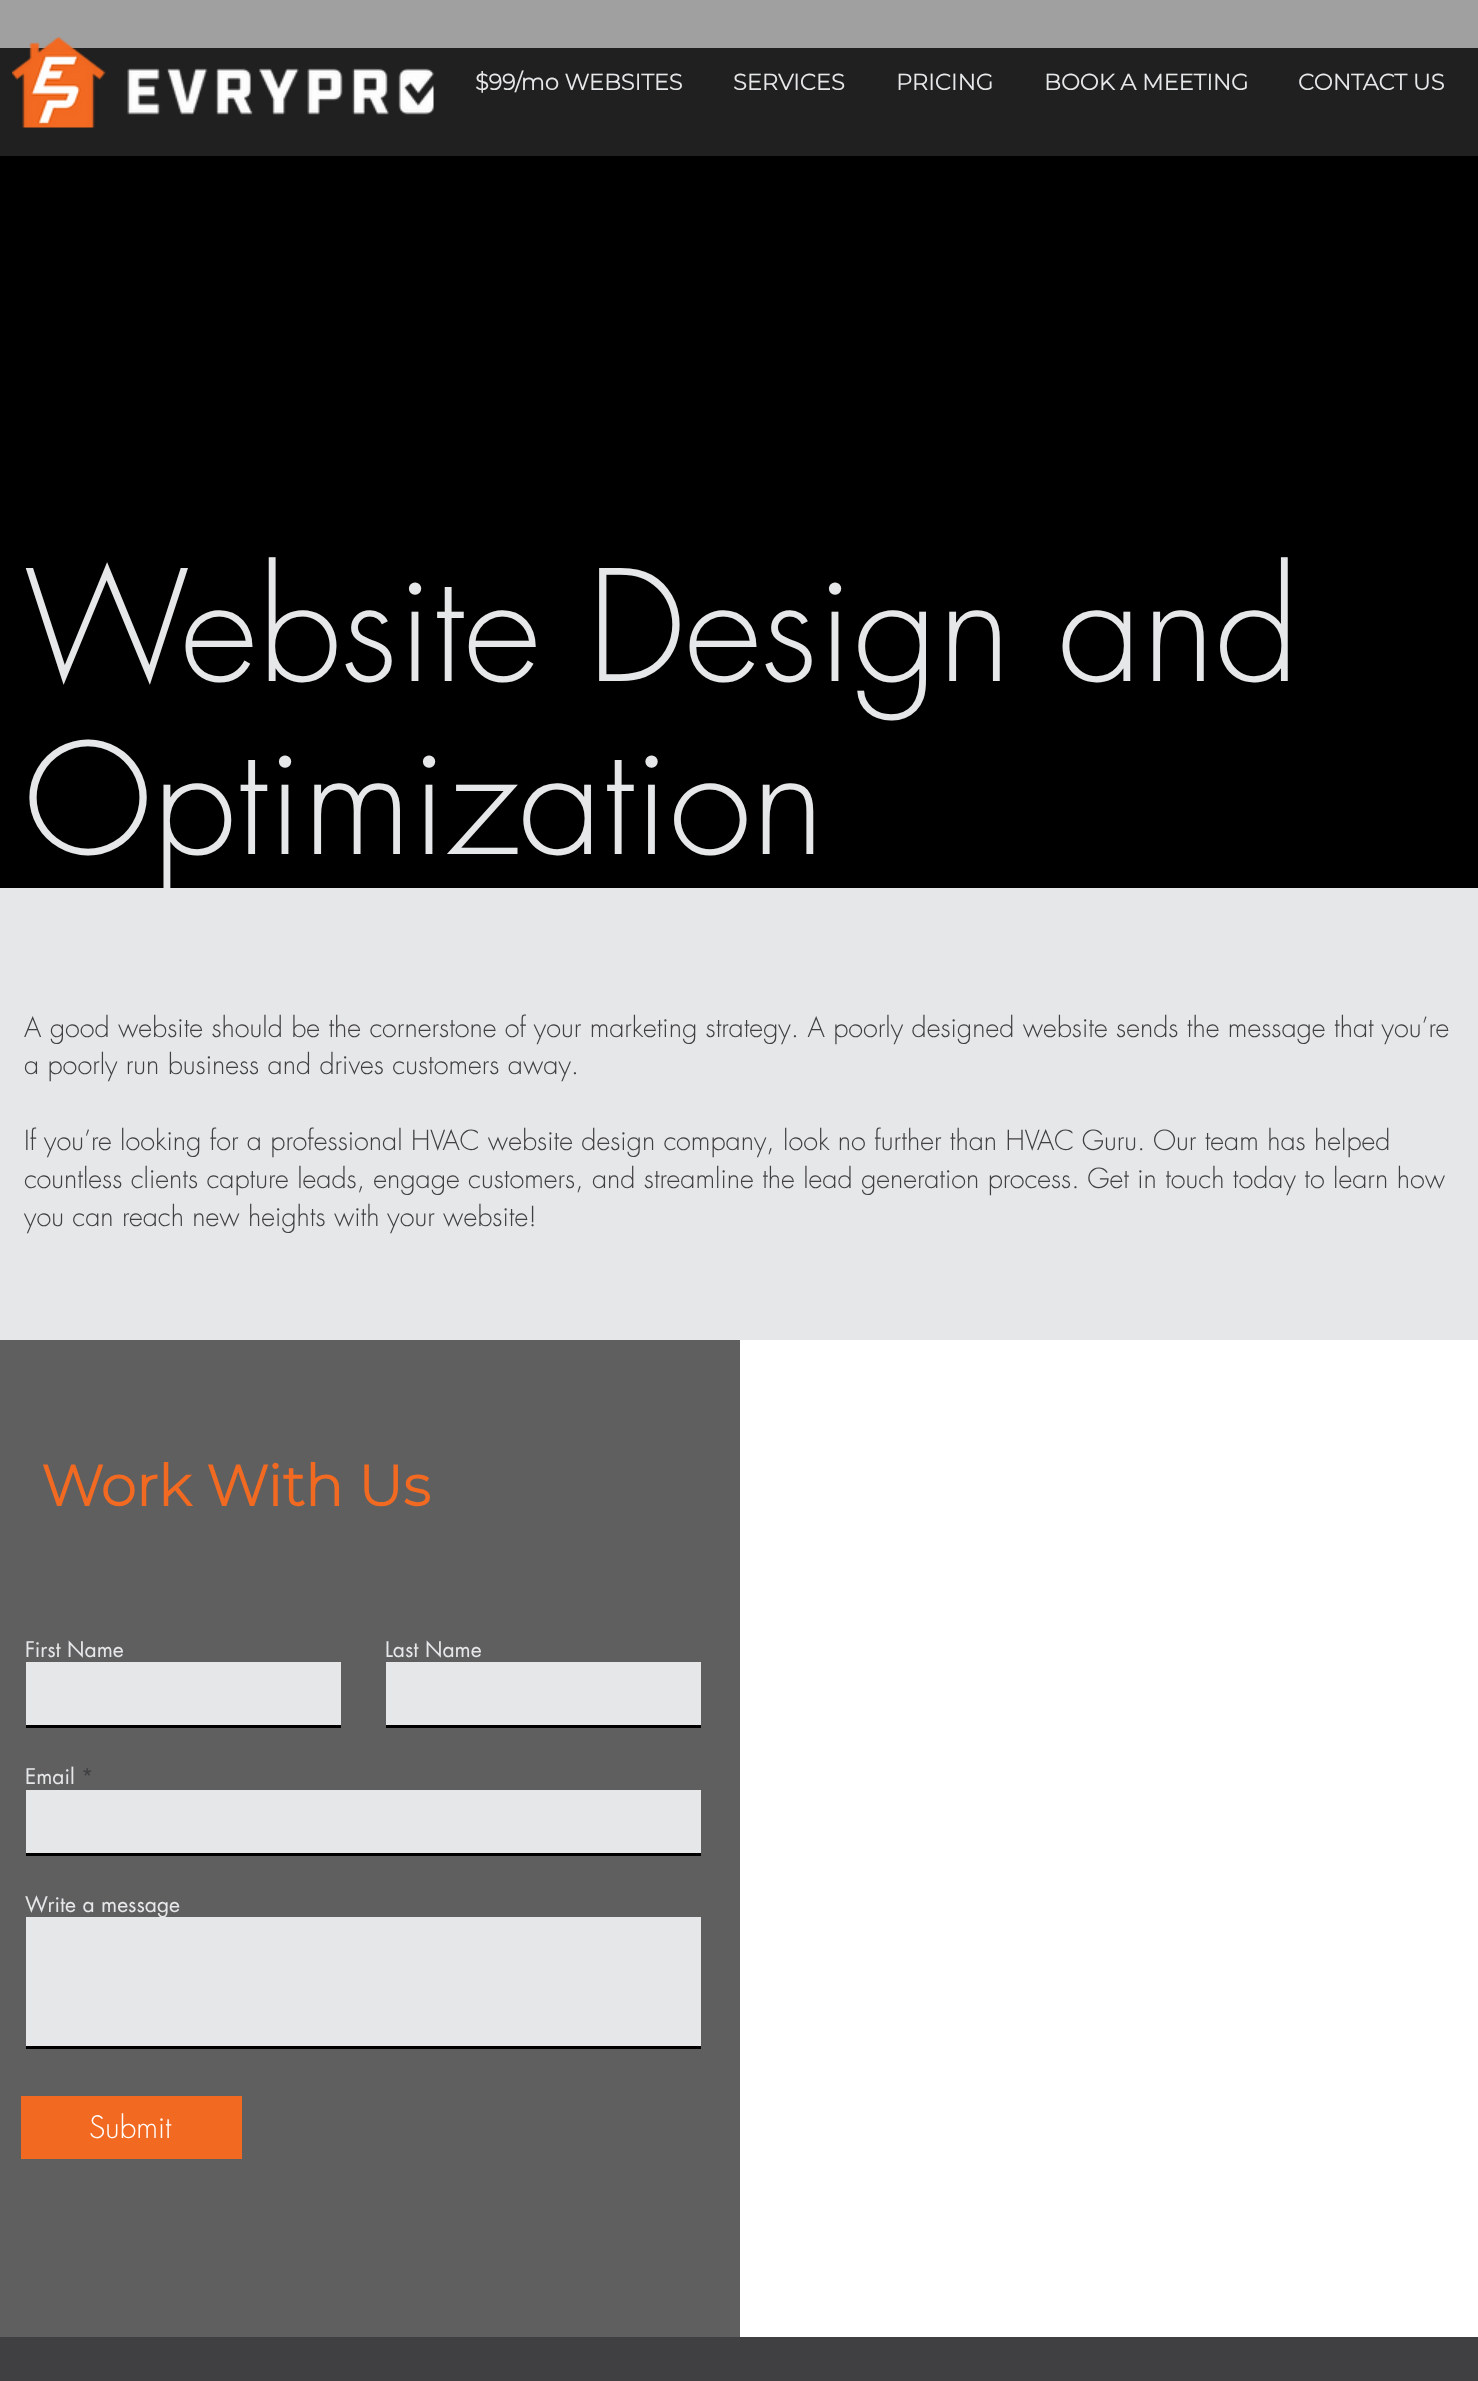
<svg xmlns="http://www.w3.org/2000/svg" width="1478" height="2381">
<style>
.a{font:bold 22.5px Montserrat;fill:#e6e7e8}
.b{font:300 150px futura;fill:#e6e7e8}
.c{font:300 27px futura;fill:#404042}
.d{font:bold 57px Montserrat;fill:#f26a21}
.e{font:21px futura;fill:#e6e7e8}
.f{font:21px futura;fill:#404042}
.g{font:300 30px futura;fill:#fff}
</style>
<rect width="100%" height="100%" fill="#fff"/>
<path fill="#a0a0a1" d="M0 0h1478v48H0z"/>
<path fill="#202021" d="M0 48h1478v108H0z"/>
<image href="1.png" x="12" y="37" width="422" height="91"/>
<path fill="#000" d="M0 156h1478v732H0z"/>
<path fill="#e6e7e8" d="M0 888h1478v452H0z"/>
<path fill="#5f5f60" d="M0 1340h740v997H0z"/>
<path fill="#e6e7e8" d="M26 1662h315v63H26z"/>
<path fill="#000" d="M26 1725h315v3H26z"/>
<path fill="#e6e7e8" d="M386 1662h315v63H386z"/>
<path fill="#000" d="M386 1725h315v3H386z"/>
<path fill="#e6e7e8" d="M26 1790h675v63H26z"/>
<path fill="#000" d="M26 1853h675v3H26z"/>
<path fill="#e6e7e8" d="M26 1917h675v129H26z"/>
<path fill="#000" d="M26 2046h675v3H26z"/>
<path fill="#f26a21" d="M21 2096h221v63H21z"/>
<path fill="#404042" d="M0 2337h1478v44H0z"/>
<text class="a" x="475" y="90">$99/mo WEBSITES</text>
<text class="a" x="733" y="90">SERVICES</text>
<text class="a" x="896" y="90">PRICING</text>
<text class="a" x="1044" y="90">BOOK A MEETING</text>
<text class="a" x="1298" y="90">CONTACT US</text>
<text class="b" x="24" y="681">Website Design and</text>
<text class="b" x="24" y="854">Optimization</text>
<text class="c" x="24" y="1037">A good website should be the cornerstone of your marketing strategy. A poorly designed website sends the message that you’re</text>
<text class="c" x="24" y="1074">a poorly run business and drives customers away.</text>
<text class="c" x="24" y="1150">If you’re looking for a professional HVAC website design company, look no further than HVAC Guru. Our team has helped</text>
<text class="c" x="24" y="1188">countless clients capture leads, engage customers, and streamline the lead generation process. Get in touch today to learn how</text>
<text class="c" x="24" y="1226">you can reach new heights with your website!</text>
<text class="d" x="41" y="1506">Work With Us</text>
<text class="e" x="25" y="1657">First Name</text>
<text class="e" x="385" y="1657">Last Name</text>
<text class="e" x="25" y="1784">Email</text>
<text class="f" x="81" y="1784">*</text>
<text class="e" x="25" y="1912">Write a message</text>
<text class="g" x="89" y="2138">Submit</text>
</svg>
